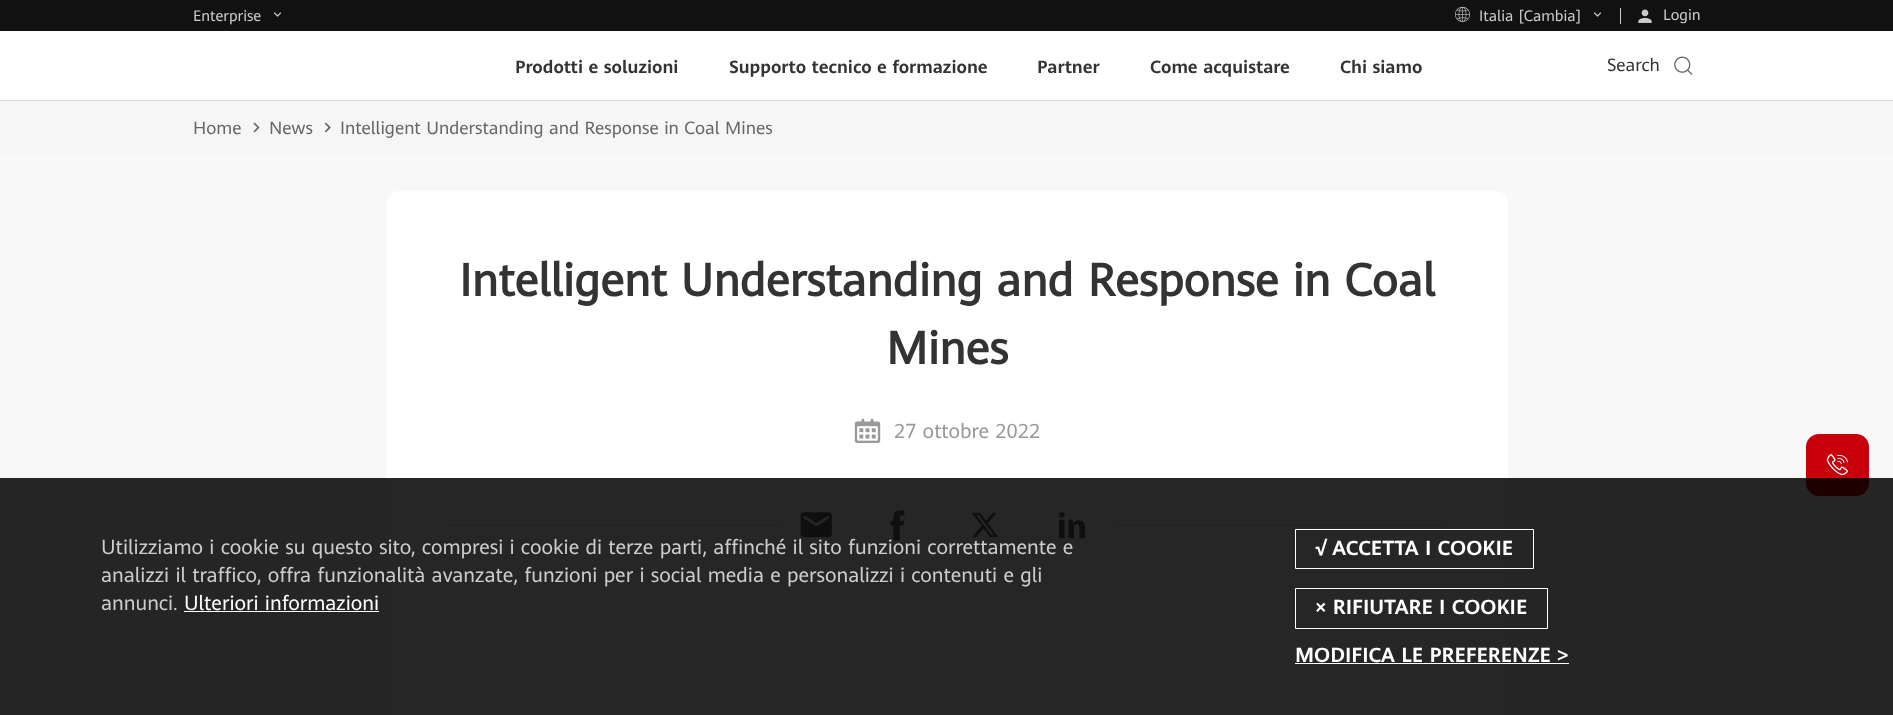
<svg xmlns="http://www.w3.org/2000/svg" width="1893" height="715">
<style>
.a{font:15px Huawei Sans;fill:#ccc}
.b{font:bold 17.5px 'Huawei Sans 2';fill:#333}
.c{font:17.5px Huawei Sans;fill:#333}
.d{font:17.5px Huawei Sans;fill:#666}
.e{font:bold 45px Huawei Sans;fill:#333}
.f{font:20px Huawei Sans;fill:#999}
.g{font:20px Huawei Sans;fill:#ccc}
.h{font:20px Huawei Sans;fill:#fff}
.i{font:bold 20px 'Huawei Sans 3';fill:#fff}
</style>
<rect width="100%" height="100%" fill="#fff"/>
<path fill="#111" d="M0 0h1893v31H0z"/>
<image href="1.png" x="273" y="12" width="9" height="5"/>
<image href="2.png" x="1455" y="6" width="15" height="16"/>
<image href="1.png" x="1593" y="12" width="9" height="5"/>
<path fill="#ccc" d="M1620 8h1v16H1620z"/>
<image href="3.png" x="1638" y="9" width="14" height="14"/>
<path fill="#ddd" d="M0 100h1893v1H0z"/>
<image href="4.png" x="1674" y="56" width="19" height="19"/>
<path fill="#f6f6f6" d="M0 101h1893v53H0z"/>
<image href="5.png" x="253" y="122" width="7" height="11"/>
<image href="6.png" x="324" y="122" width="7" height="11"/>
<path fill="#f8f8f8" d="M0 154h1893v561H0z"/>
<rect fill="#fff" x="386" y="191" width="1122" height="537" rx="13"/>
<image href="7.png" x="854" y="418" width="27" height="25"/>
<path fill="#ddd" d="M449 525h330v1H449z"/>
<image href="8.png" x="800" y="512" width="32" height="26"/>
<image href="9.png" x="890" y="510" width="15" height="31"/>
<image href="10.png" x="971" y="512" width="28" height="26"/>
<image href="11.png" x="1059" y="512" width="27" height="27"/>
<path fill="#ddd" d="M1116 525h329v1H1116z"/>
<rect fill="#c7000b" x="1806" y="434" width="63" height="62" rx="13"/>
<image href="12.png" x="1826" y="454" width="23" height="22"/>
<path fill="#000000d9" d="M0 478h1893v237H0z"/>
<path fill="#fff" d="M184 611h195v1H184z"/>
<path fill="none" stroke="#fff" d="M1295.5 529.5h238v39H1295.5z"/>
<path fill="none" stroke="#fff" d="M1295.5 588.5h252v40H1295.5z"/>
<path fill="#fff" d="M1295 663h274v1H1295z"/>
<text class="a" x="193" y="21">Enterprise</text>
<text class="a" x="1479" y="21">Italia [Cambia]</text>
<text class="a" x="1663" y="20">Login</text>
<text class="b" x="515" y="73">Prodotti e soluzioni</text>
<text class="b" x="729" y="73">Supporto tecnico e formazione</text>
<text class="b" x="1037" y="73">Partner</text>
<text class="b" x="1150" y="73">Come acquistare</text>
<text class="b" x="1340" y="73">Chi siamo</text>
<text class="c" x="1607" y="71">Search</text>
<text class="d" x="193" y="134">Home</text>
<text class="d" x="269" y="134">News</text>
<text class="d" x="340" y="134">Intelligent Understanding and Response in Coal Mines</text>
<text class="e" x="459" y="296">Intelligent Understanding and Response in Coal</text>
<text class="e" x="886" y="364">Mines</text>
<text class="f" x="894" y="438">27 ottobre 2022</text>
<text class="g" x="101" y="554">Utilizziamo i cookie su questo sito, compresi i cookie di terze parti, affinché il sito funzioni correttamente e</text>
<text class="g" x="101" y="582">analizzi il traffico, offra funzionalità avanzate, funzioni per i social media e personalizzi i contenuti e gli</text>
<text class="g" x="101" y="610">annunci.</text>
<text class="h" x="184" y="610">Ulteriori informazioni</text>
<text class="i" x="1315" y="555">√ ACCETTA I COOKIE</text>
<text class="i" x="1315" y="614">× RIFIUTARE I COOKIE</text>
<text class="i" x="1295" y="662">MODIFICA LE PREFERENZE &gt;</text>
</svg>
